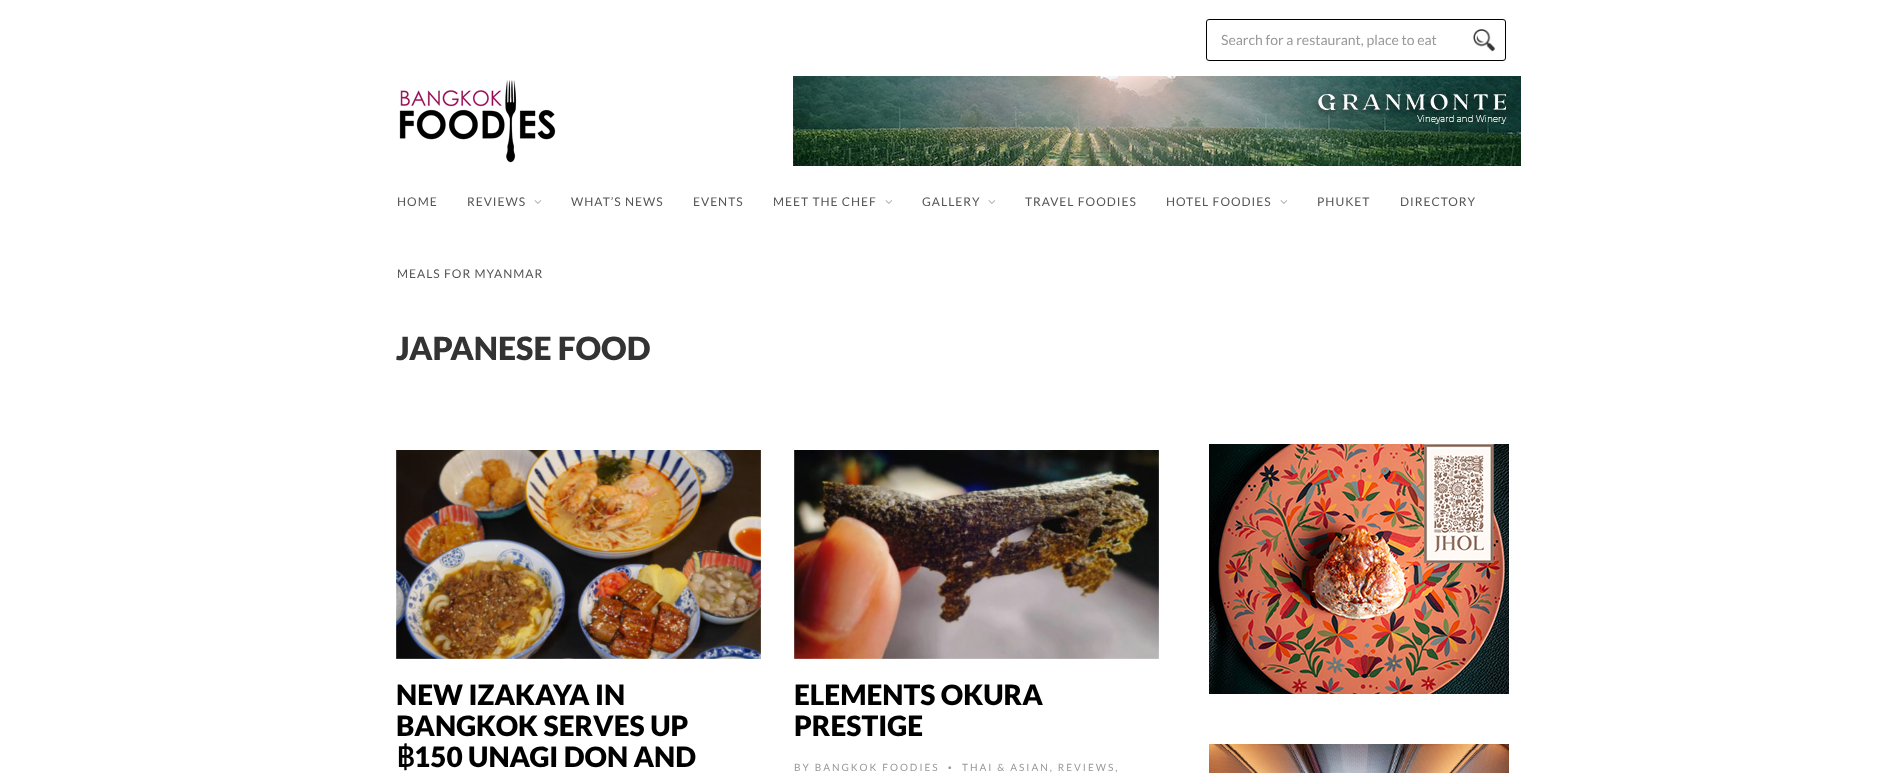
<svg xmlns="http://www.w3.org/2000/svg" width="1901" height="773">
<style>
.a{font:14px Lato;fill:#999}
.b{font:12px Lato;letter-spacing:1px;fill:#555}
.c{font:900 32px Lato;fill:#333}
.d{font:900 28px Lato;fill:#000}
.e{font:bold 28px Lato;fill:#000}
.f{font:10px Lato;letter-spacing:2px;fill:#999}
.g{font:10px Liberation Sans;letter-spacing:2px;fill:#999}
</style>
<rect width="100%" height="100%" fill="#fff"/>
<image href="1.png" x="1473" y="29" width="23" height="23"/>
<rect fill="none" stroke="#000" x="1206.5" y="19.5" width="299" height="41" rx="2.5"/>
<image href="2.png" x="399" y="80" width="157" height="83"/>
<image href="3.png" x="793" y="76" width="728" height="90"/>
<image href="4.png" x="534" y="200" width="8" height="4"/>
<image href="4.png" x="885" y="200" width="8" height="4"/>
<image href="4.png" x="988" y="200" width="8" height="4"/>
<image href="4.png" x="1280" y="200" width="8" height="4"/>
<image href="5.png" x="396" y="450" width="365" height="209"/>
<image href="6.png" x="794" y="450" width="365" height="209"/>
<image href="7.png" x="1209" y="444" width="300" height="250"/>
<image href="8.png" x="1209" y="744" width="300" height="29"/>
<text class="a" x="1221" y="45">Search for a restaurant, place to eat</text>
<text class="b" x="397" y="206">HOME</text>
<text class="b" x="467" y="206">REVIEWS</text>
<text class="b" x="571" y="206">WHAT’S NEWS</text>
<text class="b" x="693" y="206">EVENTS</text>
<text class="b" x="773" y="206">MEET THE CHEF</text>
<text class="b" x="922" y="206">GALLERY</text>
<text class="b" x="1025" y="206">TRAVEL FOODIES</text>
<text class="b" x="1166" y="206">HOTEL FOODIES</text>
<text class="b" x="1317" y="206">PHUKET</text>
<text class="b" x="1400" y="206">DIRECTORY</text>
<text class="b" x="397" y="278">MEALS FOR MYANMAR</text>
<text class="c" x="396" y="360">JAPANESE FOOD</text>
<text class="d" x="396" y="705">NEW IZAKAYA IN</text>
<text class="d" x="396" y="736">BANGKOK SERVES UP</text>
<text class="e" x="396" y="767">฿</text>
<text class="d" x="414" y="767">150 UNAGI DON AND</text>
<text class="d" x="794" y="705">ELEMENTS OKURA</text>
<text class="d" x="794" y="736">PRESTIGE</text>
<text class="f" x="794" y="771">BY BANGKOK FOODIES</text>
<text class="g" x="948" y="771">•</text>
<text class="f" x="962" y="771">THAI &amp; ASIAN, REVIEWS,</text>
</svg>
